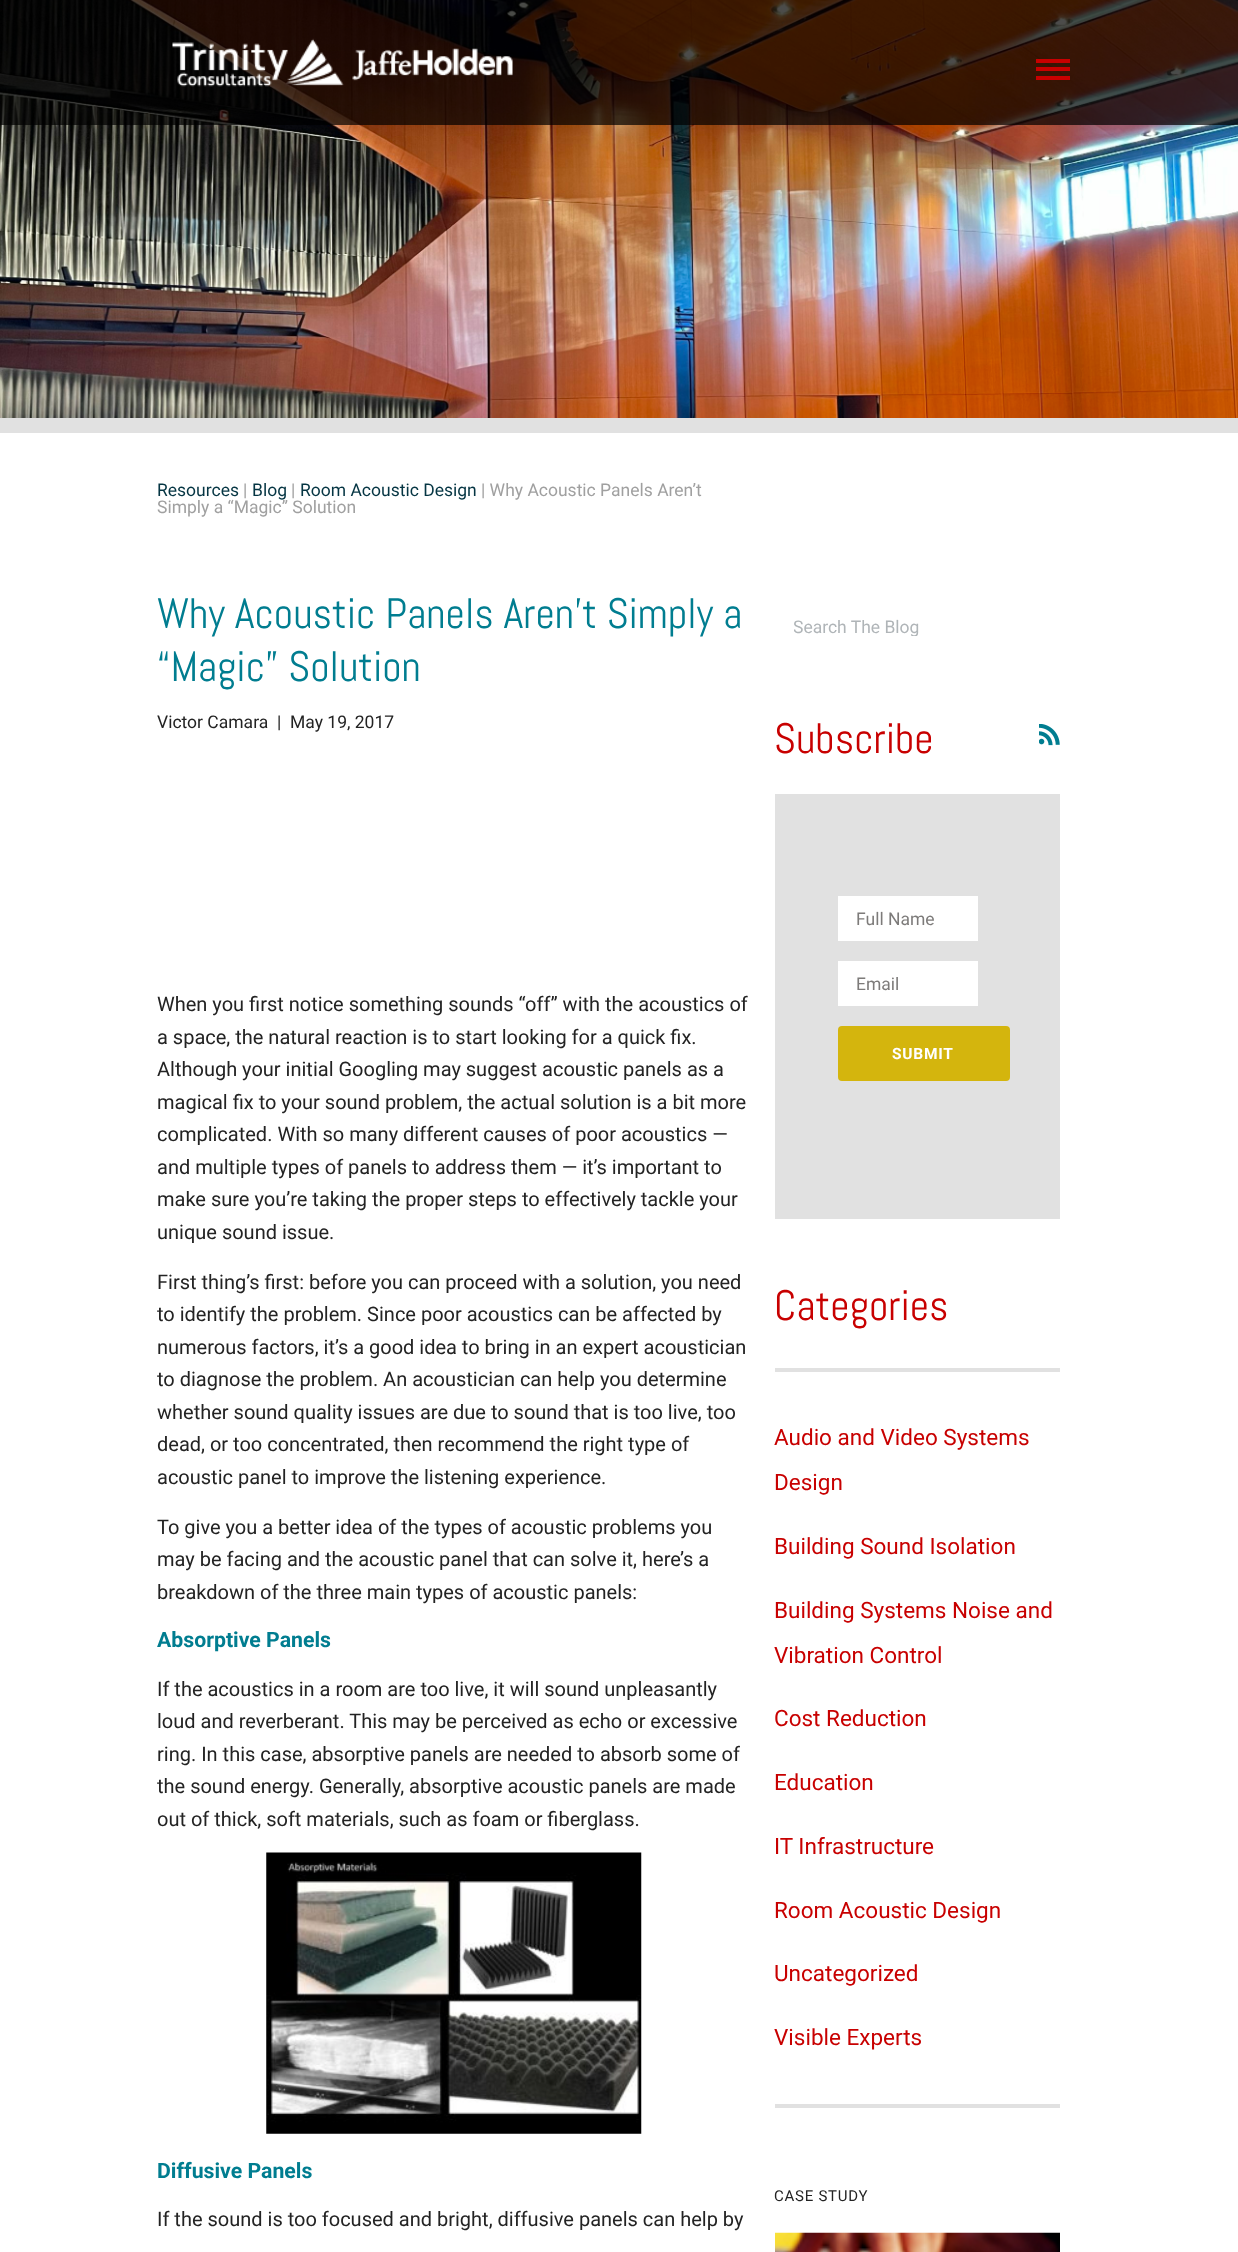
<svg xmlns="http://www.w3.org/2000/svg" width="1238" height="2252">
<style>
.a{font:17.5px Roboto;fill:#053543}
.b{font:17.5px Roboto;fill:#a0a0a0}
.c{font:42.5px Abel;fill:#007d90}
.d{font:17.5px Roboto;fill:#232323}
.e{font:20px Roboto;fill:#232323}
.f{font:bold 21.25px Roboto;fill:#007d90}
.g{font:17.5px Roboto;fill:#b0b5b8}
.h{font:42.5px Abel;fill:#c80000}
.i{font:17.5px Roboto;fill:#7d7b7a}
.j{font:bold 15.5px Roboto;letter-spacing:0.75px;fill:#fff}
.k{font:22.5px Roboto;fill:#c80000}
.l{font:15px Roboto;letter-spacing:0.75px;fill:#232323}
</style>
<defs>
<clipPath id="clip1"><path d="M794 616h224v20H794z"/></clipPath>
</defs>
<rect width="100%" height="100%" fill="#fff"/>
<image href="2.png" x="0" y="0" width="1238" height="418"/>
<path fill="#000000b3" d="M0 0h1238v125H0z"/>
<image href="1.png" x="172" y="38" width="341" height="49"/>
<path fill="#c80000" d="M1036 59h34v4H1036z"/>
<path fill="#c80000" d="M1036 67h34v4H1036z"/>
<path fill="#c80000" d="M1036 76h34v4H1036z"/>
<path fill="#e1e1e1" d="M0 418h1238v15H0z"/>
<image href="3.png" x="266" y="1852" width="376" height="282"/>
<image href="4.png" x="1039" y="724" width="21" height="22"/>
<path fill="#e1e1e1" d="M775 794h285v425H775z"/>
<path fill="#fff" d="M838 896h140v45H838z"/>
<path fill="#fff" d="M838 961h140v45H838z"/>
<rect fill="#d4b50d" x="838" y="1026" width="172" height="55" rx="4"/>
<path fill="#e1e1e1" d="M775 1368h285v4H775z"/>
<path fill="#e1e1e1" d="M775 2104h285v4H775z"/>
<image href="5.png" x="775" y="2232" width="285" height="20"/>
<text class="a" x="157" y="496">Resources</text>
<text class="b" x="243" y="496">|</text>
<text class="a" x="252" y="496">Blog</text>
<text class="b" x="291" y="496">|</text>
<text class="a" x="300" y="496">Room Acoustic Design</text>
<text class="b" x="481" y="496">| Why Acoustic Panels Aren’t</text>
<text class="b" x="157" y="513">Simply a “Magic” Solution</text>
<text class="c" x="157" y="628">Why Acoustic Panels Aren’t Simply a</text>
<text class="c" x="157" y="681">“Magic” Solution</text>
<text class="d" x="157" y="728">Victor Camara</text>
<text class="d" x="277" y="728">|</text>
<text class="d" x="290" y="728">May 19, 2017</text>
<text class="e" x="157" y="1011">When you first notice something sounds “off” with the acoustics of</text>
<text class="e" x="157" y="1044">a space, the natural reaction is to start looking for a quick fix.</text>
<text class="e" x="157" y="1076">Although your initial Googling may suggest acoustic panels as a</text>
<text class="e" x="157" y="1109">magical fix to your sound problem, the actual solution is a bit more</text>
<text class="e" x="157" y="1141">complicated. With so many different causes of poor acoustics —</text>
<text class="e" x="157" y="1174">and multiple types of panels to address them — it’s important to</text>
<text class="e" x="157" y="1206">make sure you’re taking the proper steps to effectively tackle your</text>
<text class="e" x="157" y="1239">unique sound issue.</text>
<text class="e" x="157" y="1289">First thing’s first: before you can proceed with a solution, you need</text>
<text class="e" x="157" y="1321">to identify the problem. Since poor acoustics can be affected by</text>
<text class="e" x="157" y="1354">numerous factors, it’s a good idea to bring in an expert acoustician</text>
<text class="e" x="157" y="1386">to diagnose the problem. An acoustician can help you determine</text>
<text class="e" x="157" y="1419">whether sound quality issues are due to sound that is too live, too</text>
<text class="e" x="157" y="1451">dead, or too concentrated, then recommend the right type of</text>
<text class="e" x="157" y="1484">acoustic panel to improve the listening experience.</text>
<text class="e" x="157" y="1534">To give you a better idea of the types of acoustic problems you</text>
<text class="e" x="157" y="1566">may be facing and the acoustic panel that can solve it, here’s a</text>
<text class="e" x="157" y="1599">breakdown of the three main types of acoustic panels:</text>
<text class="f" x="157" y="1647">Absorptive Panels</text>
<text class="e" x="157" y="1696">If the acoustics in a room are too live, it will sound unpleasantly</text>
<text class="e" x="157" y="1728">loud and reverberant. This may be perceived as echo or excessive</text>
<text class="e" x="157" y="1761">ring. In this case, absorptive panels are needed to absorb some of</text>
<text class="e" x="157" y="1793">the sound energy. Generally, absorptive acoustic panels are made</text>
<text class="e" x="157" y="1826">out of thick, soft materials, such as foam or fiberglass.</text>
<text class="f" x="157" y="2178">Diffusive Panels</text>
<text class="e" x="157" y="2226">If the sound is too focused and bright, diffusive panels can help by</text>
<g clip-path="url(#clip1)">
<text class="g" x="793" y="633">Search The Blog</text>
</g>
<text class="h" x="774" y="753">Subscribe</text>
<text class="i" x="856" y="925">Full Name</text>
<text class="i" x="856" y="990">Email</text>
<text class="j" x="892" y="1059">SUBMIT</text>
<text class="h" x="774" y="1320">Categories</text>
<text class="k" x="774" y="1445">Audio and Video Systems</text>
<text class="k" x="774" y="1490">Design</text>
<text class="k" x="774" y="1554">Building Sound Isolation</text>
<text class="k" x="774" y="1618">Building Systems Noise and</text>
<text class="k" x="774" y="1663">Vibration Control</text>
<text class="k" x="774" y="1726">Cost Reduction</text>
<text class="k" x="774" y="1790">Education</text>
<text class="k" x="774" y="1854">IT Infrastructure</text>
<text class="k" x="774" y="1918">Room Acoustic Design</text>
<text class="k" x="774" y="1981">Uncategorized</text>
<text class="k" x="774" y="2045">Visible Experts</text>
<text class="l" x="774" y="2201">CASE STUDY</text>
</svg>
